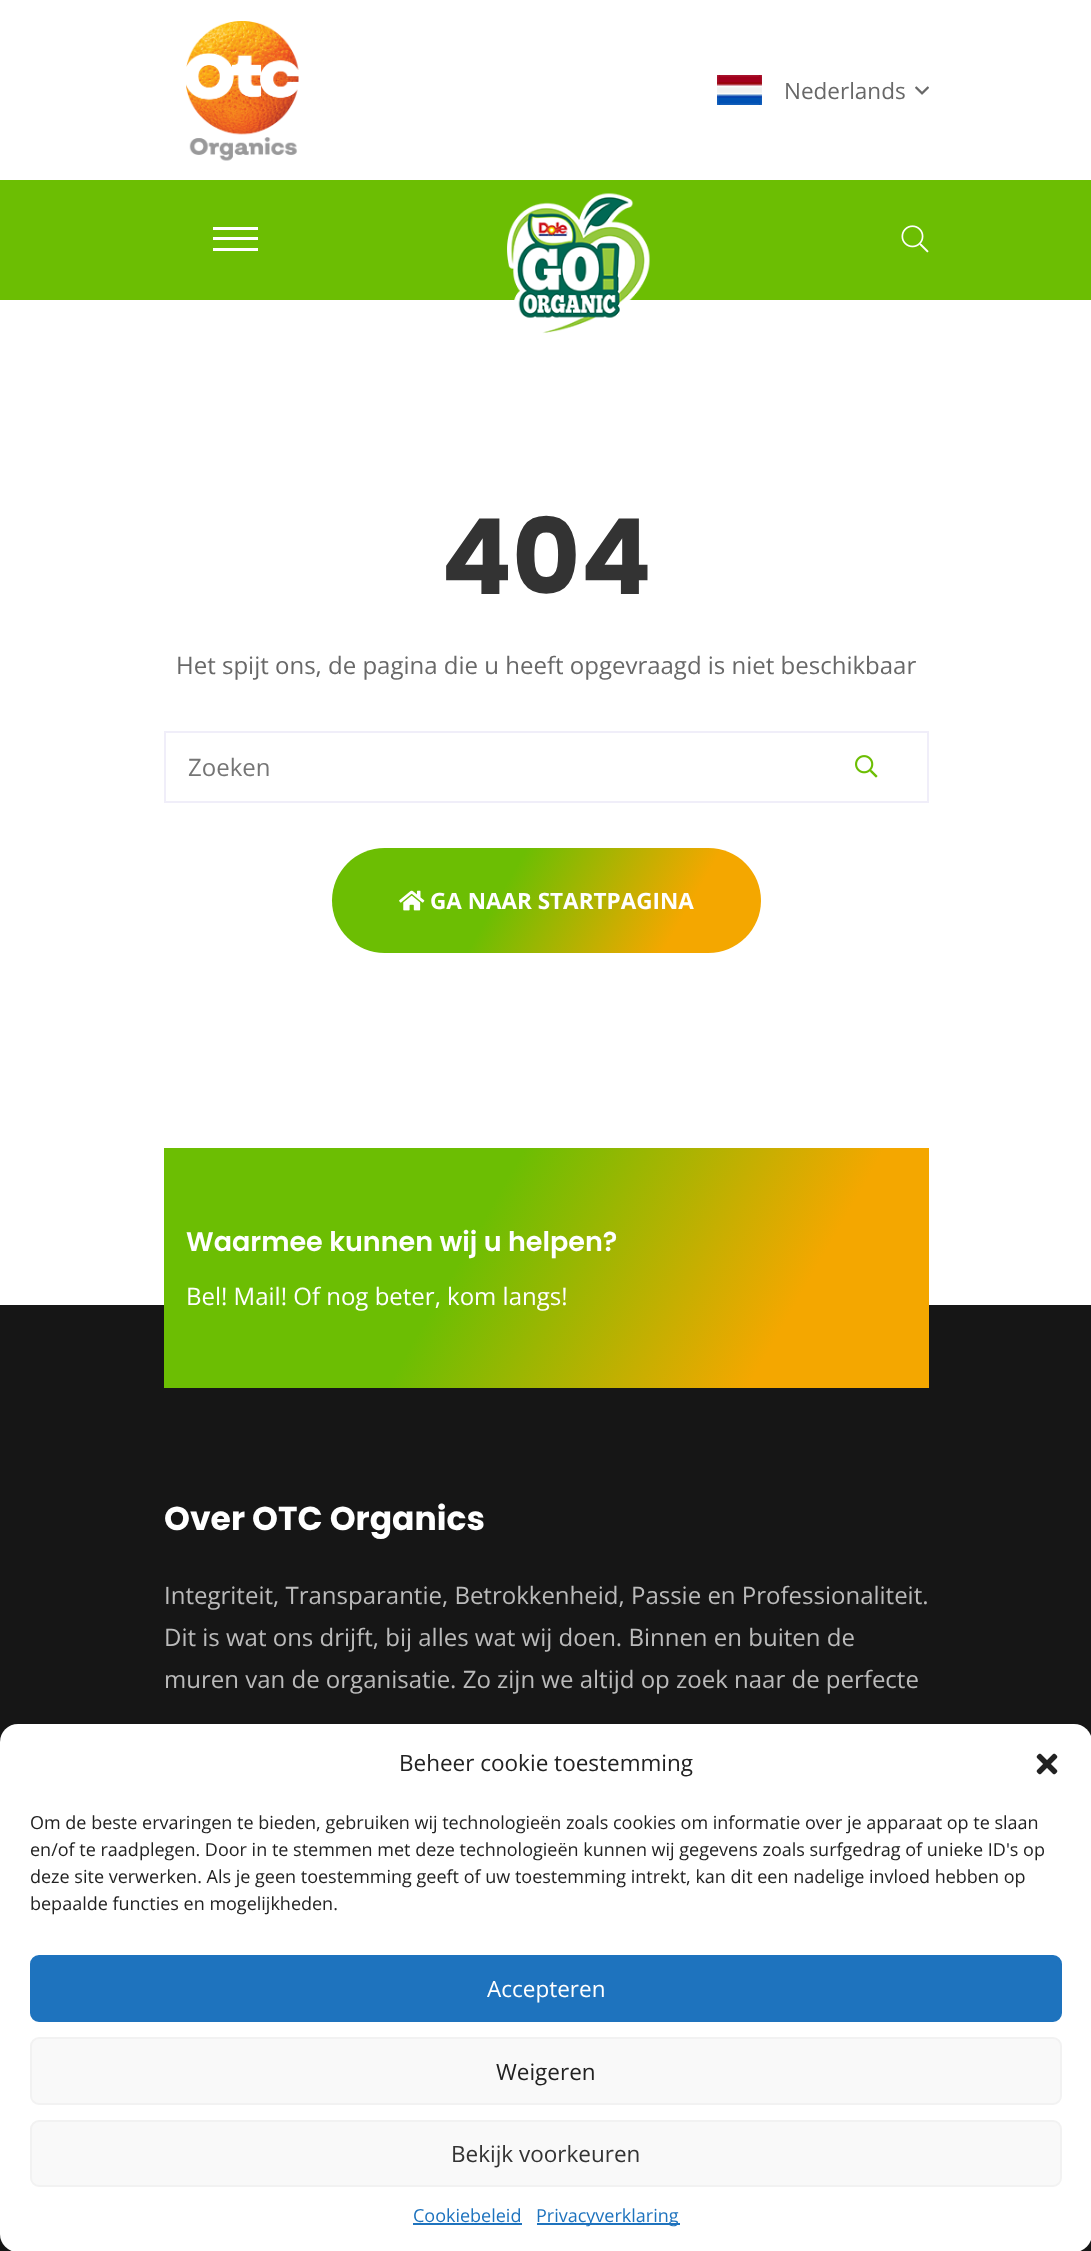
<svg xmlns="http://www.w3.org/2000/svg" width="1091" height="2251">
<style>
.a{font:22.5px Open Sans;fill:#686868}
.b{font:bold 105px Poppins;fill:#333}
.c{font:24px Open Sans;fill:#686868}
.d{font:24px Open Sans;fill:#757575}
.e{font:bold 22.5px Open Sans;fill:#fff}
.f{font:600 27px Poppins;fill:#fff}
.g{font:24px Open Sans;fill:#fff}
.h{font:bold 33px Poppins;fill:#fff}
.i{font:24px Open Sans;fill:#bbb}
.j{font:22.5px Open Sans;fill:#222}
.k{font:18px Open Sans;fill:#222}
.l{font:22.5px Open Sans;fill:#fff}
.m{font:22.5px Open Sans;fill:#333}
.n{font:18px Open Sans;fill:#1e73be}
</style>
<defs>
<linearGradient id="g1" gradientUnits="userSpaceOnUse" x1="362" y1="794" x2="730" y2="1006"><stop offset="0.4" stop-color="#6cbe03"/><stop offset="0.8" stop-color="#f4a700"/></linearGradient>
<linearGradient id="g2" gradientUnits="userSpaceOnUse" x1="207" y1="1072" x2="885" y2="1463"><stop offset="0.4" stop-color="#6cbe03"/><stop offset="0.8" stop-color="#f4a700"/></linearGradient>
</defs>
<rect width="100%" height="100%" fill="#fff"/>
<image href="1.png" x="186" y="21" width="113" height="140"/>
<image href="2.png" x="717" y="75" width="45" height="30"/>
<image href="3.png" x="915" y="86" width="14" height="9"/>
<path fill="#6cbe03" d="M0 180h1091v120H0z"/>
<path fill="#fff" d="M213 227h45v3H213z"/>
<path fill="#fff" d="M213 237h45v3H213z"/>
<path fill="#fff" d="M213 248h45v3H213z"/>
<image href="4.png" x="507" y="193" width="143" height="141"/>
<image href="5.png" x="901" y="225" width="28" height="28"/>
<path fill="none" stroke="#f0eef9" stroke-width="2" d="M165 732h763v70H165z"/>
<image href="6.png" x="855" y="755" width="23" height="23"/>
<rect fill="url(#g1)" x="332" y="848" width="429" height="105" rx="52.5"/>
<image href="7.png" x="399" y="890" width="26" height="21"/>
<path fill="#161616" d="M0 1305h1091v946H0z"/>
<path fill="url(#g2)" d="M164 1148h765v240H164z"/>
<rect fill="#fff" y="1724" width="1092" height="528" rx="18"/>
<image href="8.png" x="1036" y="1753" width="22" height="22"/>
<rect fill="#1e73be" stroke="#1e73be" stroke-width="2" x="31" y="1956" width="1030" height="65" rx="8"/>
<rect fill="#f9f9f9" stroke="#f2f2f2" stroke-width="2" x="31" y="2038" width="1030" height="66" rx="8"/>
<rect fill="#f9f9f9" stroke="#f2f2f2" stroke-width="2" x="31" y="2121" width="1030" height="65" rx="8"/>
<path fill="#1e73be" d="M413 2223h109v2H413z"/>
<path fill="#1e73be" d="M537 2223h143v2H537z"/>
<text class="a" x="784" y="99">Nederlands</text>
<text class="b" x="441" y="594">404</text>
<text class="c" x="176" y="674">Het spijt ons, de pagina die u heeft opgevraagd is niet beschikbaar</text>
<text class="d" x="188" y="776">Zoeken</text>
<text class="e" x="430" y="909">GA NAAR STARTPAGINA</text>
<text class="f" x="186" y="1251">Waarmee kunnen wij u helpen?</text>
<text class="g" x="186" y="1305">Bel! Mail! Of nog beter, kom langs!</text>
<text class="h" x="164" y="1530">Over OTC Organics</text>
<text class="i" x="164" y="1604">Integriteit, Transparantie, Betrokkenheid, Passie en Professionaliteit.</text>
<text class="i" x="164" y="1646">Dit is wat ons drijft, bij alles wat wij doen. Binnen en buiten de</text>
<text class="i" x="164" y="1688">muren van de organisatie. Zo zijn we altijd op zoek naar de perfecte</text>
<text class="j" x="399" y="1771">Beheer cookie toestemming</text>
<text class="k" x="30" y="1829">Om de beste ervaringen te bieden, gebruiken wij technologieën zoals cookies om informatie over je apparaat op te slaan</text>
<text class="k" x="30" y="1856">en/of te raadplegen. Door in te stemmen met deze technologieën kunnen wij gegevens zoals surfgedrag of unieke ID's op</text>
<text class="k" x="30" y="1883">deze site verwerken. Als je geen toestemming geeft of uw toestemming intrekt, kan dit een nadelige invloed hebben op</text>
<text class="k" x="30" y="1910">bepaalde functies en mogelijkheden.</text>
<text class="l" x="487" y="1997">Accepteren</text>
<text class="j" x="496" y="2080">Weigeren</text>
<text class="m" x="451" y="2162">Bekijk voorkeuren</text>
<text class="n" x="413" y="2222">Cookiebeleid</text>
<text class="n" x="536" y="2222">Privacyverklaring</text>
</svg>
